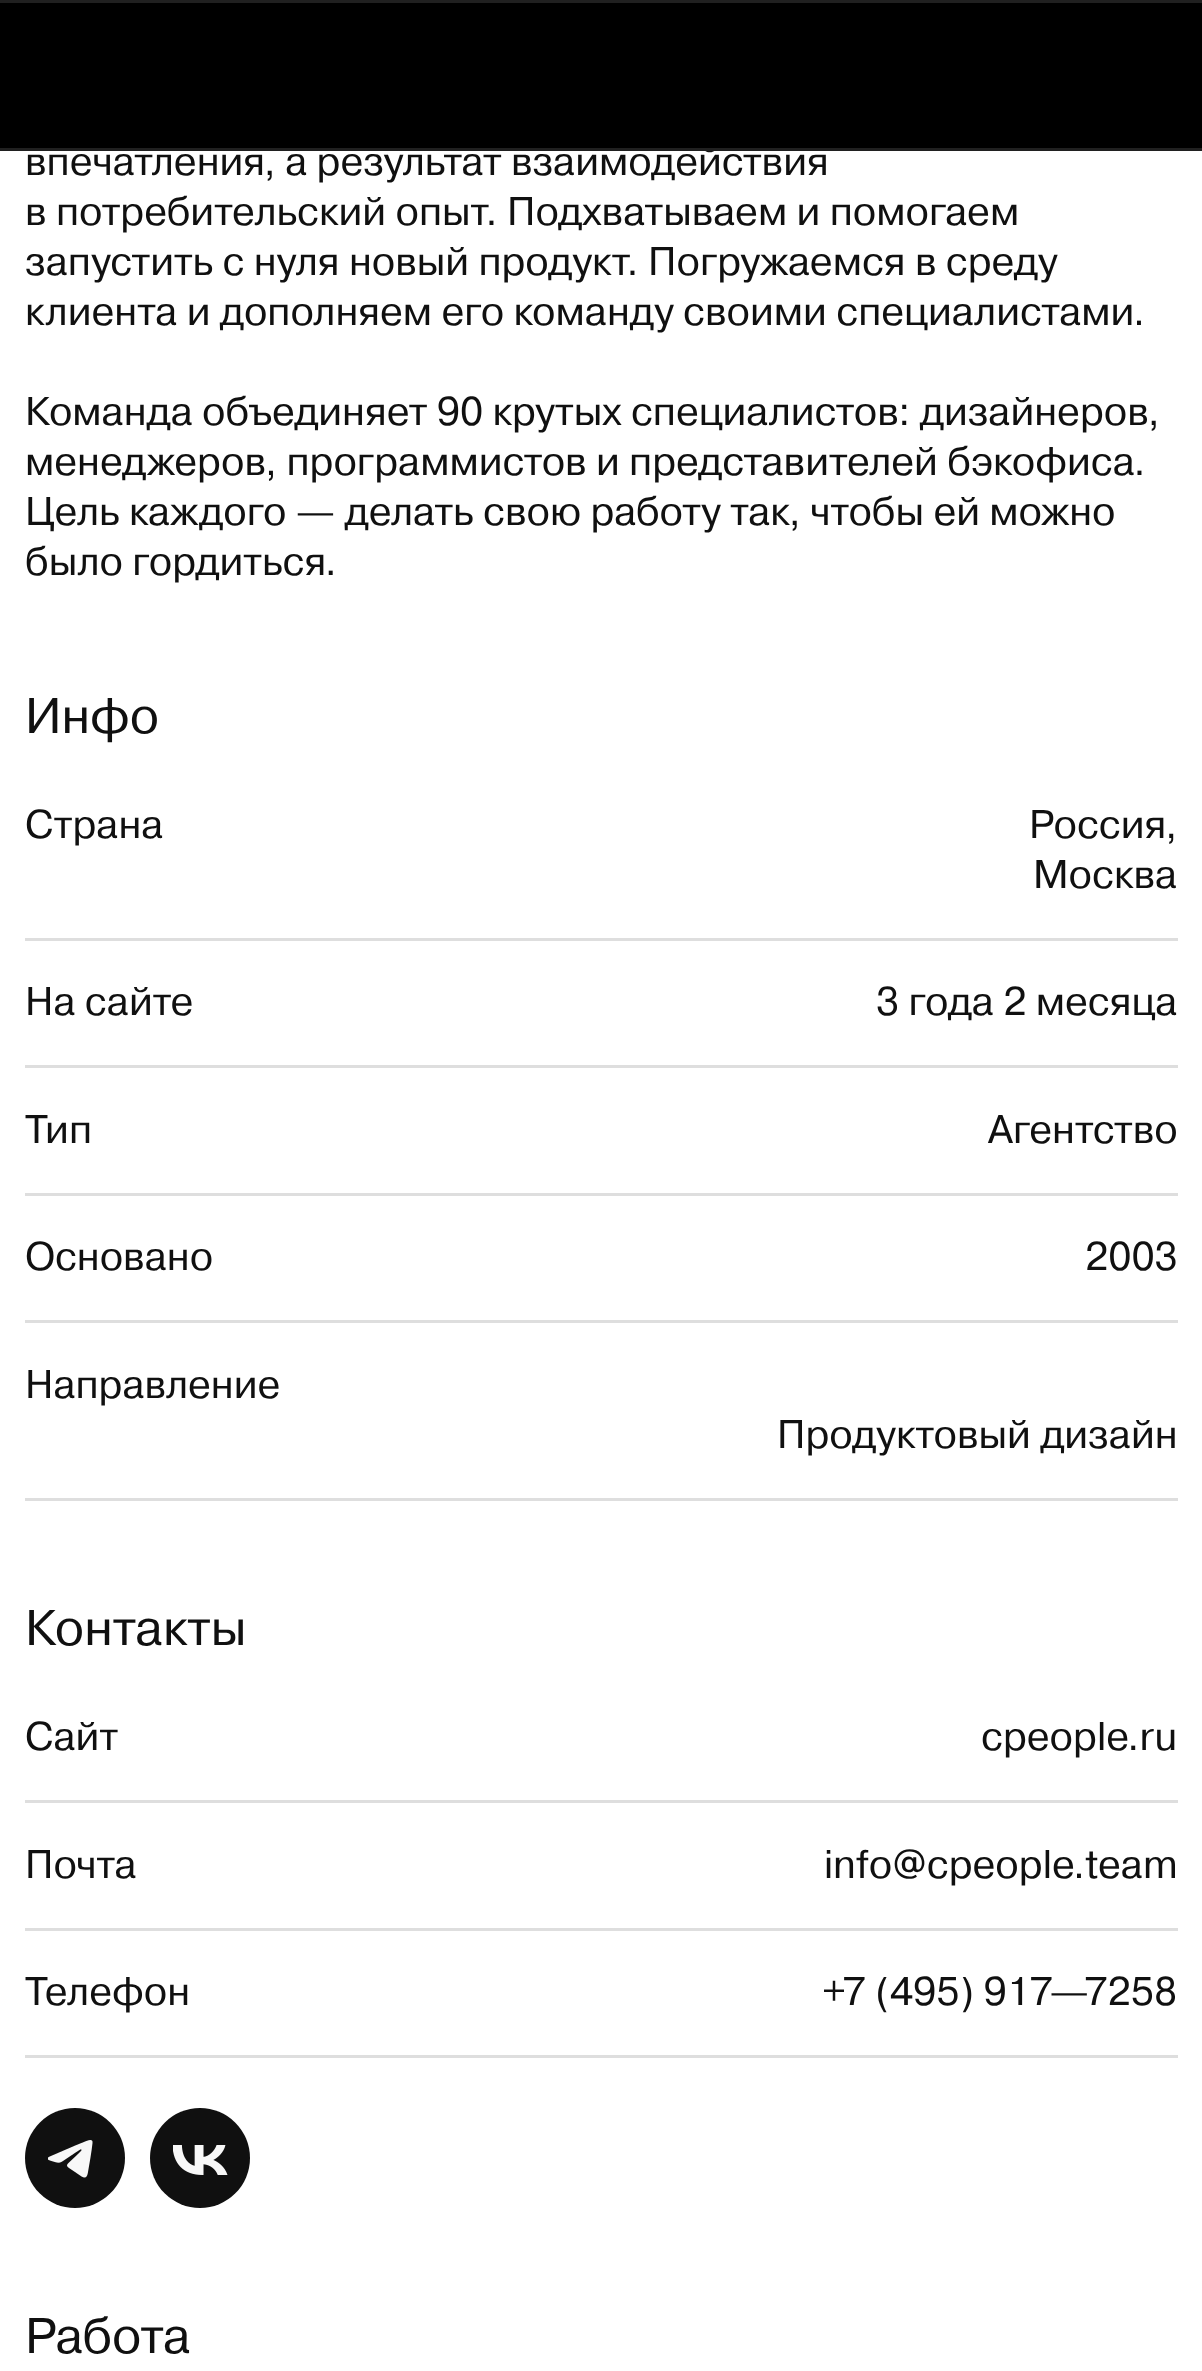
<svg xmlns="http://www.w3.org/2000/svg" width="1202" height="2371">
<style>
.a{font:40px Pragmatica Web;fill:#101010}
.b{font:50px Pragmatica Web;fill:#101010}
</style>
<rect width="100%" height="100%" fill="#fff"/>
<path fill="#202020" d="M0 0h1202v3H0z"/>
<path fill="#dedede" d="M25 938h1153v3H25z"/>
<path fill="#dedede" d="M25 1065h1153v3H25z"/>
<path fill="#dedede" d="M25 1193h1153v3H25z"/>
<path fill="#dedede" d="M25 1320h1153v3H25z"/>
<path fill="#dedede" d="M25 1498h1153v3H25z"/>
<path fill="#dedede" d="M25 1800h1153v3H25z"/>
<path fill="#dedede" d="M25 1928h1153v3H25z"/>
<path fill="#dedede" d="M25 2055h1153v3H25z"/>
<circle fill="#101010" cx="75" cy="2158" r="50"/>
<image href="1.png" x="48" y="2140" width="45" height="38"/>
<circle fill="#101010" cx="200" cy="2158" r="50"/>
<image href="2.png" x="173" y="2145" width="55" height="30"/>
<text class="a" x="25" y="175">впечатления, а результат взаимодействия</text>
<path fill="#202020" d="M0 148h1202v3H0z"/>
<path fill="#000" d="M0 3h1202v145H0z"/>
<text class="a" x="25" y="225">в потребительский опыт. Подхватываем и помогаем</text>
<text class="a" x="25" y="275">запустить с нуля новый продукт. Погружаемся в среду</text>
<text class="a" x="25" y="325">клиента и дополняем его команду своими специалистами.</text>
<text class="a" x="25" y="425">Команда объединяет 90 крутых специалистов: дизайнеров,</text>
<text class="a" x="25" y="475">менеджеров, программистов и представителей бэкофиса.</text>
<text class="a" x="25" y="525">Цель каждого — делать свою работу так, чтобы ей можно</text>
<text class="a" x="25" y="575">было гордиться.</text>
<text class="b" x="25" y="733">Инфо</text>
<text class="a" x="25" y="838">Страна</text>
<text class="a" x="1029" y="838">Россия</text>
<text class="a" x="1165" y="838">,</text>
<text class="a" x="1033" y="888">Москва</text>
<text class="a" x="25" y="1015">На сайте</text>
<text class="a" x="876" y="1015">3 года 2 месяца</text>
<text class="a" x="25" y="1143">Тип</text>
<text class="a" x="988" y="1143">Агентство</text>
<text class="a" x="25" y="1270">Основано</text>
<text class="a" x="1085" y="1270">2003</text>
<text class="a" x="25" y="1398">Направление</text>
<text class="a" x="777" y="1448">Продуктовый дизайн</text>
<text class="b" x="25" y="1645">Контакты</text>
<text class="a" x="25" y="1750">Сайт</text>
<text class="a" x="981" y="1750">cpeople.ru</text>
<text class="a" x="25" y="1878">Почта</text>
<text class="a" x="824" y="1878">info@cpeople.team</text>
<text class="a" x="25" y="2005">Телефон</text>
<text class="a" x="822" y="2005">+7 (495) 917—7258</text>
<text class="b" x="25" y="2353">Работа</text>
</svg>
